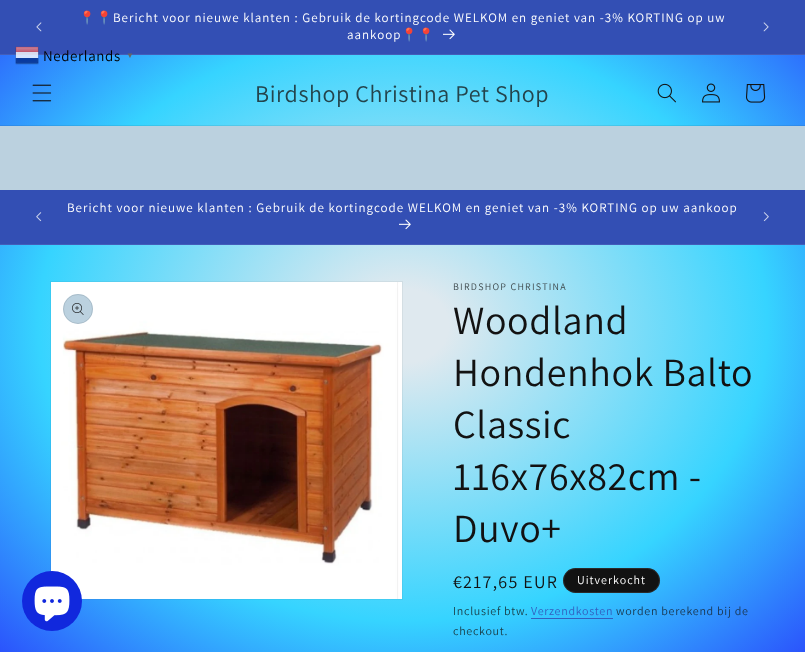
<svg xmlns="http://www.w3.org/2000/svg" width="805" height="652">
<style>
.a{font:13px Noto Color Emoji;letter-spacing:1px;fill:#fff}
.b{font:13px Assistant;letter-spacing:1px;fill:#fff}
.c{font:15px Assistant;letter-spacing:0.6px;fill:#000}
.d{font:bold 8px Liberation Sans;letter-spacing:0.6px;fill:#666}
.e{font:24px Assistant;letter-spacing:0.6px;fill:#24444c}
.f{font:10px Assistant;letter-spacing:1.25px;fill:#3c474a}
.g{font:40px Assistant;letter-spacing:0.6px;fill:#121212}
.h{font:18px Assistant;letter-spacing:1.25px;fill:#121212}
.i{font:12px Assistant;letter-spacing:1px;fill:#fff}
.j{font:12px Assistant;letter-spacing:0.7px;fill:#1b424d}
.k{font:12px Assistant;letter-spacing:0.7px;fill:#3360bf}
.l{font:12px Assistant;letter-spacing:0.7px;fill:#1a354d}
</style>
<defs>
<radialGradient id="g1" gradientUnits="userSpaceOnUse" cx="0" cy="0" r="1" gradientTransform="matrix(569 0 0 461 403 326)"><stop offset="0.08" stop-color="#dfe9ef"/><stop offset="0.64" stop-color="#36d4ff"/><stop offset="1" stop-color="#2b54fc"/></radialGradient>
<radialGradient id="g2" gradientUnits="userSpaceOnUse" cx="0" cy="0" r="1" gradientTransform="matrix(569 0 0 461 403 326)"><stop offset="0.08" stop-color="#cfd8dd"/><stop offset="0.64" stop-color="#33c4ec"/><stop offset="1" stop-color="#294fe9"/></radialGradient>
<radialGradient id="g3" gradientUnits="userSpaceOnUse" cx="0" cy="0" r="1" gradientTransform="matrix(569 0 0 461 403 326)"><stop offset="0.08" stop-color="#4d66bd"/><stop offset="0.64" stop-color="#3363bf"/><stop offset="1" stop-color="#3250bf"/></radialGradient>
</defs>
<rect width="100%" height="100%" fill="#bbd1df"/>
<path fill="#334fb4" d="M0 0h805v54H0z"/>
<path fill="#435dba" d="M0 54h805v1H0z"/>
<image href="1.png" x="36" y="22" width="6" height="10"/>
<image href="2.png" x="443" y="29" width="12" height="11"/>
<image href="3.png" x="763" y="22" width="6" height="10"/>
<path fill="url(#g1)" d="M0 55h805v70H0z"/>
<image href="4.png" x="15" y="46" width="24" height="19"/>
<path fill="url(#g2)" d="M0 125h805v1H0z"/>
<image href="5.png" x="32" y="84" width="20" height="18"/>
<image href="6.png" x="657" y="83" width="19" height="20"/>
<image href="7.png" x="702" y="83" width="18" height="20"/>
<image href="8.png" x="746" y="84" width="20" height="19"/>
<path fill="#334fb4" d="M0 190h805v54H0z"/>
<path fill="#435dba" d="M0 244h805v1H0z"/>
<image href="2.png" x="399" y="219" width="12" height="11"/>
<image href="9.png" x="36" y="212" width="6" height="10"/>
<image href="10.png" x="763" y="212" width="6" height="10"/>
<path fill="url(#g1)" d="M0 245h805v407H0z"/>
<path fill="none" stroke="#1212120d" d="M50.5 281.5h352v318H50.5z"/>
<image href="12.png" x="51" y="282" width="351" height="317"/>
<circle fill="#1128dd" cx="52" cy="601" r="30"/>
<image href="11.png" x="34" y="586" width="36" height="36"/>
<path fill="url(#g3)" d="M531 618h82v1H531z"/>
<circle fill="#bbd1df" cx="78" cy="309" r="15"/>
<circle fill="none" stroke="#1212121a" cx="78" cy="309" r="14.5"/>
<image href="13.png" x="72" y="303" width="12" height="12"/>
<rect fill="#121212" x="563" y="568" width="97" height="25" rx="12.5"/>
<rect fill="none" stroke="#ffffff1a" x="563.5" y="568.5" width="96" height="24" rx="12"/>
<text class="a" x="79" y="22">📍📍</text>
<text class="b" x="113" y="22">Bericht voor nieuwe klanten : Gebruik de kortingcode WELKOM en geniet van -3% KORTING op uw</text>
<text class="b" x="347" y="39">aankoop</text>
<text class="a" x="401" y="39">📍📍</text>
<text class="c" x="43" y="61">Nederlands</text>
<text class="d" x="126" y="58">▼</text>
<text class="e" x="255" y="102">Birdshop Christina Pet Shop</text>
<text class="b" x="67" y="212">Bericht voor nieuwe klanten : Gebruik de kortingcode WELKOM en geniet van -3% KORTING op uw aankoop</text>
<text class="f" x="453" y="290">BIRDSHOP CHRISTINA</text>
<text class="g" x="453" y="334">Woodland</text>
<text class="g" x="453" y="386">Hondenhok Balto</text>
<text class="g" x="453" y="438">Classic</text>
<text class="g" x="453" y="490">116x76x82cm -</text>
<text class="g" x="453" y="542">Duvo+</text>
<text class="h" x="453" y="588">€217,65 EUR</text>
<text class="i" x="577" y="584">Uitverkocht</text>
<text class="j" x="453" y="615">Inclusief btw.</text>
<text class="k" x="531" y="615">Verzendkosten</text>
<text class="l" x="616" y="615">worden berekend bij de</text>
<text class="j" x="453" y="635">checkout.</text>
</svg>
